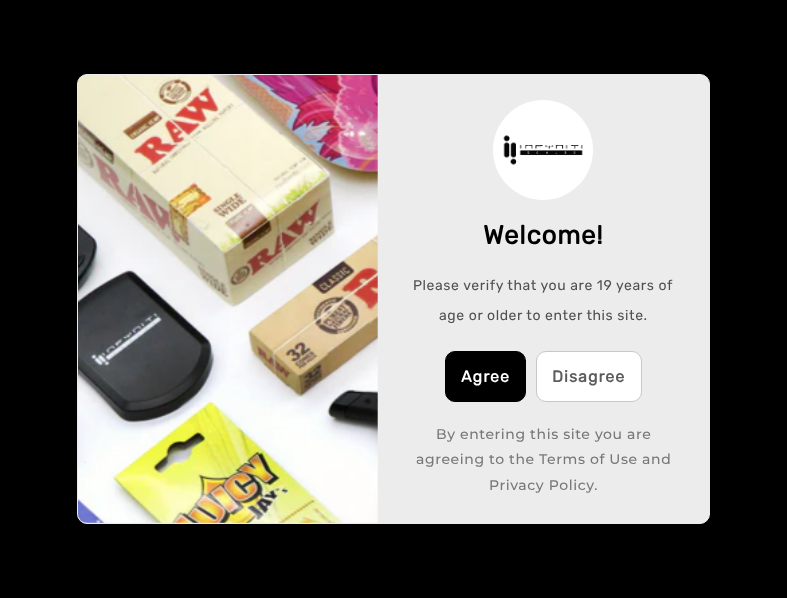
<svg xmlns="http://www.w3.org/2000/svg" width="787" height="598">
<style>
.a{font:bold 26px Rubik;letter-spacing:0.75px;fill:#000}
.b{font:300 14px Rubik;letter-spacing:0.6px;fill:#505050}
.c{font:bold 16px Rubik;letter-spacing:1px;fill:#fff}
.d{font:bold 16px Rubik;letter-spacing:1px;fill:#5c5c5c}
.e{font:500 14px Montserrat;letter-spacing:0.6px;fill:#787878}
</style>
<rect width="100%" height="100%" fill="#000"/>
<rect fill="#ececec" stroke="#ececec" x="77.5" y="74.5" width="632" height="449" rx="9.5"/>
<image href="1.png" x="78" y="75" width="300" height="448"/>
<image href="2.png" x="493" y="100" width="100" height="100"/>
<rect fill="#000" stroke="#000" x="445.5" y="351.5" width="80" height="50" rx="9.5"/>
<rect fill="#fff" stroke="#c8c8c8" x="536.5" y="351.5" width="105" height="50" rx="9.5"/>
<text class="a" x="483" y="244">Welcome!</text>
<text class="b" x="413" y="290">Please verify that you are 19</text>
<text class="b" x="616" y="290">years of</text>
<text class="b" x="439" y="320">age or older to enter this site.</text>
<text class="c" x="461" y="382">Agree</text>
<text class="d" x="552" y="382">Disagree</text>
<text class="e" x="436" y="439">By entering this site you are</text>
<text class="e" x="416" y="464">agreeing to the Terms of Use and</text>
<text class="e" x="489" y="490">Privacy Policy.</text>
</svg>
